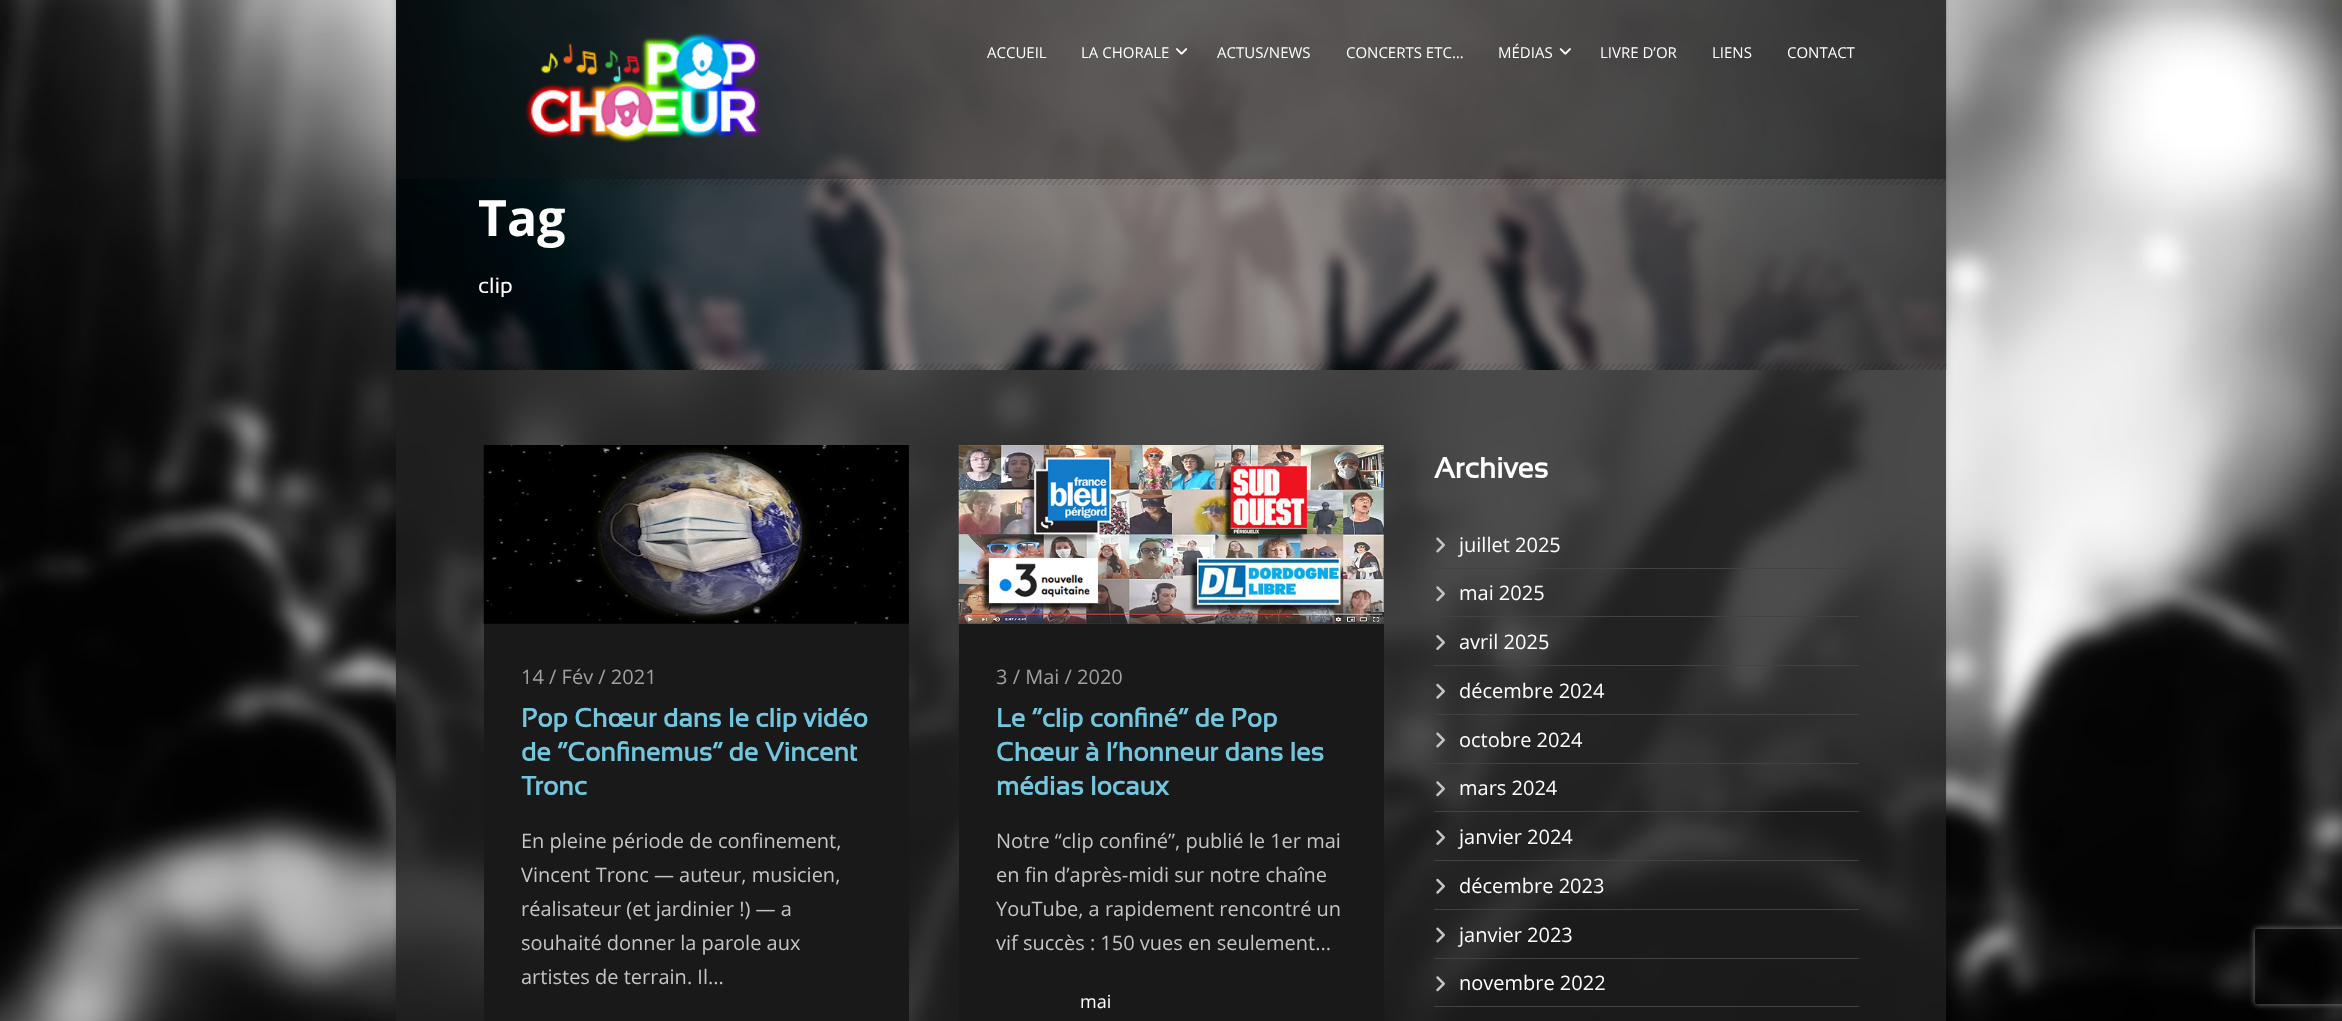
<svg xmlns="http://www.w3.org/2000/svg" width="2342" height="1021">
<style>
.a{font:15px Open Sans;fill:#fff}
.b{font:bold 50px Open Sans;fill:#fff}
.c{font:22px Sansation;fill:#fff}
.d{font:20px Open Sans;fill:#a0a0a0}
.e{font:bold 26.25px Sansation;fill:#74c6de}
.f{font:20px Open Sans;fill:#c5c5c5}
.g{font:18px Open Sans;fill:#fff}
.h{font:bold 29px Sansation;fill:#fff}
.i{font:20px Open Sans;fill:#fff}
</style>
<defs>
<clipPath id="clip1"><path d="M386 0h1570v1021h-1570zm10-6h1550v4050h-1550z" clip-rule="evenodd"/></clipPath>
<clipPath id="clip2"><path d="M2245 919h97v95h-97zm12.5 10h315c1.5 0 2.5 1 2.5 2.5v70c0 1.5-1 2.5-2.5 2.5h-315c-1.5 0-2.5-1-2.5-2.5v-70c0-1.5 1-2.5 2.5-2.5z" clip-rule="evenodd"/></clipPath>
</defs>
<rect width="100%" height="100%" fill="#fff"/>
<image href="1.png" x="0" y="0" width="2342" height="1021"/>
<g clip-path="url(#clip1)">
<path fill="#00000026" filter="blur(3px)" d="M396 -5h1550v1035H396z"/>
</g>
<path fill="#212121cc" d="M396 0h1550v1021H396z"/>
<image href="6.png" x="396" y="0" width="1551" height="370"/>
<path fill="#00000066" d="M396 0h1550v370H396z"/>
<image href="5.png" x="490" y="178" width="1457" height="7"/>
<path fill="#11111166" d="M396 0h1550v179H396z"/>
<image href="2.png" x="525" y="32" width="237" height="111"/>
<image href="3.png" x="1176" y="48" width="12" height="7"/>
<image href="4.png" x="1559" y="48" width="12" height="7"/>
<image href="7.png" x="434" y="363" width="1513" height="7"/>
<path fill="#191919" d="M484 445h425v576H484z"/>
<image href="8.png" x="483" y="445" width="426" height="179"/>
<path fill="#191919" d="M959 445h425v576H959z"/>
<image href="9.png" x="958" y="445" width="426" height="179"/>
<path fill="#424242" d="M1434 568h414v1H1434z"/>
<image href="10.png" x="1436" y="537" width="9" height="16"/>
<path fill="#424242" d="M1434 616h425v1H1434z"/>
<image href="11.png" x="1436" y="586" width="9" height="16"/>
<path fill="#424242" d="M1434 665h425v1H1434z"/>
<image href="12.png" x="1436" y="635" width="9" height="15"/>
<path fill="#424242" d="M1434 714h425v1H1434z"/>
<image href="13.png" x="1436" y="683" width="9" height="16"/>
<path fill="#424242" d="M1434 763h425v1H1434z"/>
<image href="14.png" x="1436" y="732" width="9" height="16"/>
<path fill="#424242" d="M1434 811h425v1H1434z"/>
<image href="15.png" x="1436" y="781" width="9" height="16"/>
<path fill="#424242" d="M1434 860h425v1H1434z"/>
<image href="16.png" x="1436" y="830" width="9" height="15"/>
<path fill="#424242" d="M1434 909h425v1H1434z"/>
<image href="17.png" x="1436" y="878" width="9" height="16"/>
<path fill="#424242" d="M1434 958h425v1H1434z"/>
<image href="18.png" x="1436" y="927" width="9" height="16"/>
<path fill="#424242" d="M1434 1006h425v1H1434z"/>
<image href="19.png" x="1436" y="976" width="9" height="16"/>
<g clip-path="url(#clip2)">
<rect fill="#808080" filter="blur(3px)" x="2255" y="929" width="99" height="75" rx="2.5"/>
</g>
<text class="a" x="987" y="58">ACCUEIL</text>
<text class="a" x="1081" y="58">LA CHORALE</text>
<text class="a" x="1217" y="58">ACTUS/NEWS</text>
<text class="a" x="1346" y="58">CONCERTS ETC…</text>
<text class="a" x="1498" y="58">MÉDIAS</text>
<text class="a" x="1600" y="58">LIVRE D’OR</text>
<text class="a" x="1712" y="58">LIENS</text>
<text class="a" x="1787" y="58">CONTACT</text>
<text class="b" x="478" y="236">Tag</text>
<text class="c" x="478" y="293">clip</text>
<text class="d" x="521" y="684">14 / Fév / 2021</text>
<text class="e" x="521" y="727">Pop Chœur dans le clip vidéo</text>
<text class="e" x="521" y="761">de “Confinemus” de Vincent</text>
<text class="e" x="521" y="795">Tronc</text>
<text class="f" x="521" y="848">En pleine période de confinement,</text>
<text class="f" x="521" y="882">Vincent Tronc — auteur, musicien,</text>
<text class="f" x="521" y="916">réalisateur (et jardinier !) — a</text>
<text class="f" x="521" y="950">souhaité donner la parole aux</text>
<text class="f" x="521" y="984">artistes de terrain. Il...</text>
<text class="d" x="996" y="684">3 / Mai / 2020</text>
<text class="e" x="996" y="727">Le “clip confiné” de Pop</text>
<text class="e" x="996" y="761">Chœur à l’honneur dans les</text>
<text class="e" x="996" y="795">médias locaux</text>
<text class="f" x="996" y="848">Notre “clip confiné”, publié le 1er mai</text>
<text class="f" x="996" y="882">en fin d’après-midi sur notre chaîne</text>
<text class="f" x="996" y="916">YouTube, a rapidement rencontré un</text>
<text class="f" x="996" y="950">vif succès : 150 vues en seulement...</text>
<text class="g" x="1080" y="1008">mai</text>
<text class="h" x="1434" y="478">Archives</text>
<text class="i" x="1459" y="552">juillet 2025</text>
<text class="i" x="1459" y="600">mai 2025</text>
<text class="i" x="1459" y="649">avril 2025</text>
<text class="i" x="1459" y="698">décembre 2024</text>
<text class="i" x="1459" y="747">octobre 2024</text>
<text class="i" x="1459" y="795">mars 2024</text>
<text class="i" x="1459" y="844">janvier 2024</text>
<text class="i" x="1459" y="893">décembre 2023</text>
<text class="i" x="1459" y="942">janvier 2023</text>
<text class="i" x="1459" y="990">novembre 2022</text>
</svg>
